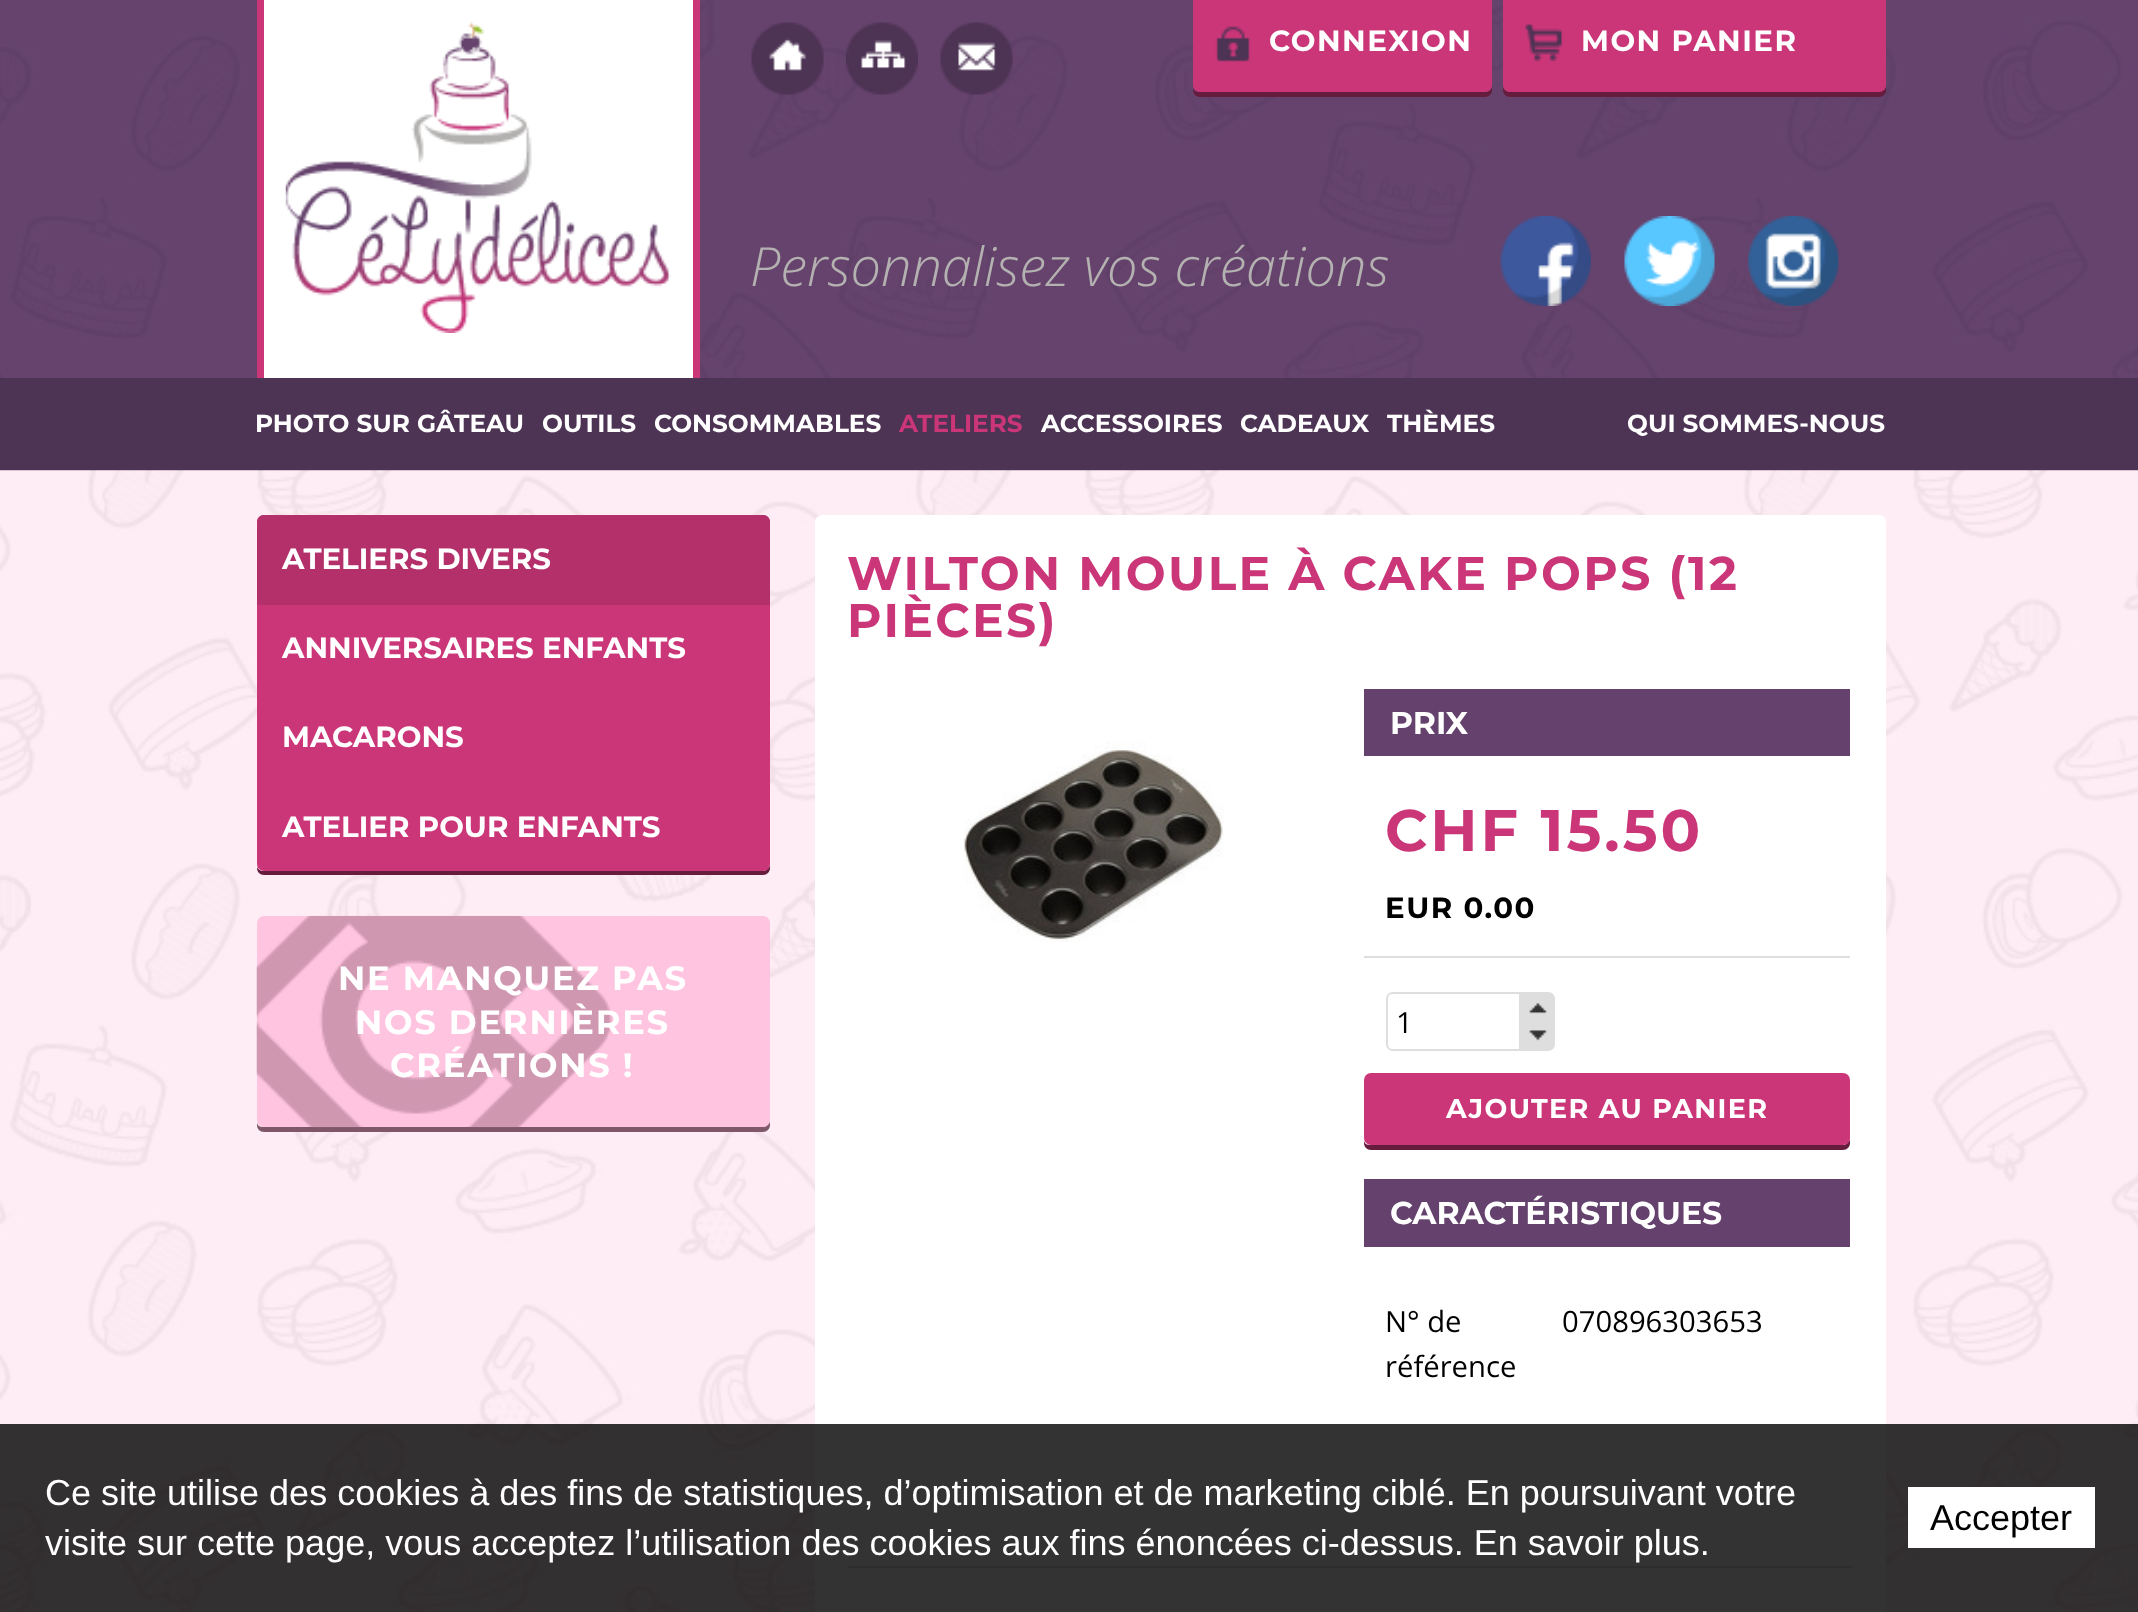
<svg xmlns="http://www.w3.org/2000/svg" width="2138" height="1612">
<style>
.a{font:100 29.25px Montserrat;letter-spacing:1.5px;fill:#fff}
.b{font:italic 300 54px Open Sans;fill:#b4b1b1}
.c{font:100 24.75px Montserrat;fill:#fff}
.d{font:100 24.75px Montserrat;fill:#cb3679}
.e{font:100 29.25px Montserrat;fill:#fff}
.f{font:100 33.75px Montserrat;letter-spacing:1.75px;fill:#fff}
.g{font:100 47.25px Montserrat;letter-spacing:2.35px;fill:#cb3679}
.h{font:100 31.5px Montserrat;fill:#fff}
.i{font:100 58.5px Montserrat;letter-spacing:3px;fill:#cb3679}
.j{font:100 29.25px Montserrat;letter-spacing:1.5px;fill:#000}
.k{font:29.25px Open Sans;fill:#000}
.l{font:100 27px Montserrat;letter-spacing:1.4px;fill:#fff}
.m{font:36px Liberation Sans;fill:#fff}
.n{font:36px Liberation Sans;fill:#000}
</style>
<rect width="100%" height="100%" fill="#fff"/>
<image href="1.png" x="0" y="470" width="2138" height="1142"/>
<image href="2.png" x="0" y="0" width="2138" height="471"/>
<path fill="#fff" d="M264 0h429v378H264z"/>
<path fill="#cb3679" d="M693 0h7v378H693z"/>
<path fill="#cb3679" d="M257 0h7v378H257z"/>
<image href="3.png" x="285" y="22" width="386" height="311"/>
<image href="4.png" x="751" y="22" width="73" height="73"/>
<image href="5.png" x="846" y="22" width="72" height="73"/>
<image href="6.png" x="940" y="22" width="73" height="73"/>
<path fill="#661c3d" d="M1193 88v2c0 4 3 7 7 7h285c4 0 7-3 7-7v-85v81c0 3-3 6-7 6h-286c-3 0-5-1-6-4z"/>
<path fill="#cb3679" d="M1193 0h299v85c0 4-3 7-7 7h-285c-4 0-7-3-7-7z"/>
<image href="7.png" x="1215" y="26" width="35" height="36"/>
<path fill="#661c3d" d="M1503 86v4c0 4 3 7 7 7h369c4 0 7-3 7-7v-85v81c0 3-4 6-7 6h-369c-4 0-7-3-7-6z"/>
<path fill="#cb3679" d="M1503 0h383v85c0 4-3 7-7 7h-369c-4 0-7-3-7-7z"/>
<image href="8.png" x="1525" y="24" width="38" height="38"/>
<image href="9.png" x="1500" y="216" width="91" height="90"/>
<image href="10.png" x="1624" y="216" width="91" height="90"/>
<image href="11.png" x="1748" y="216" width="91" height="90"/>
<path fill="#4d3354" d="M0 378h2138v92H0z"/>
<path fill="#661c3d" d="M257 867v1c0 4 3 7 7 7h499c4 0 7-3 7-7v-341v-3v340c0 4-4 7-7 7h-500c-3 0-5-2-6-4z"/>
<rect fill="#cb3679" x="257" y="515" width="513" height="356" rx="7"/>
<path fill="#b3306b" d="M264 515h499c4 0 7 3 7 7v83h-513v-83c0-4 3-7 7-7z"/>
<path fill="#7e5769" d="M257 1123v2c0 4 3 7 7 7h499c4 0 7-3 7-7v-198v-3v196c0 4-4 7-7 7h-500c-3 0-5-1-6-4z"/>
<rect fill="#ffc4df" x="257" y="916" width="513" height="211" rx="7"/>
<image href="12.png" x="256" y="915" width="357" height="213"/>
<rect fill="#fff" x="815" y="515" width="1071" height="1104" rx="7"/>
<image href="13.png" x="964" y="741" width="260" height="201"/>
<path fill="#64426d" d="M1364 689h486v67H1364z"/>
<path fill="#dedede" d="M1364 956h486v2H1364z"/>
<path fill="none" stroke="#dedede" stroke-width="2" d="M1393 993h127v57h-127c-3.5 0-6-2.5-6-6v-45c0-3.5 2.5-6 6-6z"/>
<path fill="#dedede" d="M1521 992h27c4 0 7 3 7 7v23h-34z"/>
<image href="14.png" x="1529" y="1003" width="18" height="11"/>
<path fill="#dedede" d="M1521 1022h34v22c0 4-3 7-7 7h-27z"/>
<image href="15.png" x="1529" y="1030" width="18" height="11"/>
<path fill="#661c3d" d="M1364 1141v2c0 4 3 7 7 7h472c4 0 7-3 7-7v-58v-3v56c0 4-4 7-7 7h-473c-3 0-5-1-6-4z"/>
<rect fill="#cb3679" x="1364" y="1073" width="486" height="72" rx="7"/>
<path fill="#64426d" d="M1364 1179h486v68H1364z"/>
<path fill="#dedede" d="M848 1566h1004v2H848z"/>
<path fill="#000000cc" d="M0 1424h2138v188H0z"/>
<path fill="#fff" d="M1908 1487h187v61H1908z"/>
<text class="a" x="1269" y="51">CONNEXION</text>
<text class="a" x="1581" y="51">MON PANIER</text>
<text class="b" x="750" y="286">Personnalisez vos créations</text>
<text class="c" x="255" y="432">PHOTO SUR GÂTEAU</text>
<text class="c" x="542" y="432">OUTILS</text>
<text class="c" x="654" y="432">CONSOMMABLES</text>
<text class="d" x="899" y="432">ATELIERS</text>
<text class="c" x="1041" y="432">ACCESSOIRES</text>
<text class="c" x="1240" y="432">CADEAUX</text>
<text class="c" x="1387" y="432">THÈMES</text>
<text class="c" x="1627" y="432">QUI SOMMES-NOUS</text>
<text class="e" x="282" y="569">ATELIERS DIVERS</text>
<text class="e" x="282" y="658">ANNIVERSAIRES ENFANTS</text>
<text class="e" x="282" y="747">MACARONS</text>
<text class="e" x="282" y="837">ATELIER POUR ENFANTS</text>
<text class="f" x="338" y="990">NE MANQUEZ PAS</text>
<text class="f" x="355" y="1034">NOS DERNIÈRES</text>
<text class="f" x="390" y="1077">CRÉATIONS !</text>
<text class="g" x="847" y="590">WILTON MOULE À CAKE POPS (12</text>
<text class="g" x="847" y="637">PIÈCES)</text>
<text class="h" x="1390" y="734">PRIX</text>
<text class="i" x="1385" y="851">CHF 15.50</text>
<text class="j" x="1385" y="918">EUR 0.00</text>
<text class="k" x="1396" y="1033">1</text>
<text class="l" x="1446" y="1118">AJOUTER AU PANIER</text>
<text class="h" x="1390" y="1224">CARACTÉRISTIQUES</text>
<text class="k" x="1385" y="1332">N° de</text>
<text class="k" x="1385" y="1377">référence</text>
<text class="k" x="1562" y="1332">070896303653</text>
<text class="m" x="45" y="1505">Ce site utilise des cookies à des fins de statistiques, d’optimisation et de marketing ciblé. En poursuivant votre</text>
<text class="m" x="45" y="1555">visite sur cette page, vous acceptez l’utilisation des cookies aux fins énoncées ci-dessus. En savoir plus.</text>
<text class="n" x="1930" y="1530">Accepter</text>
</svg>
